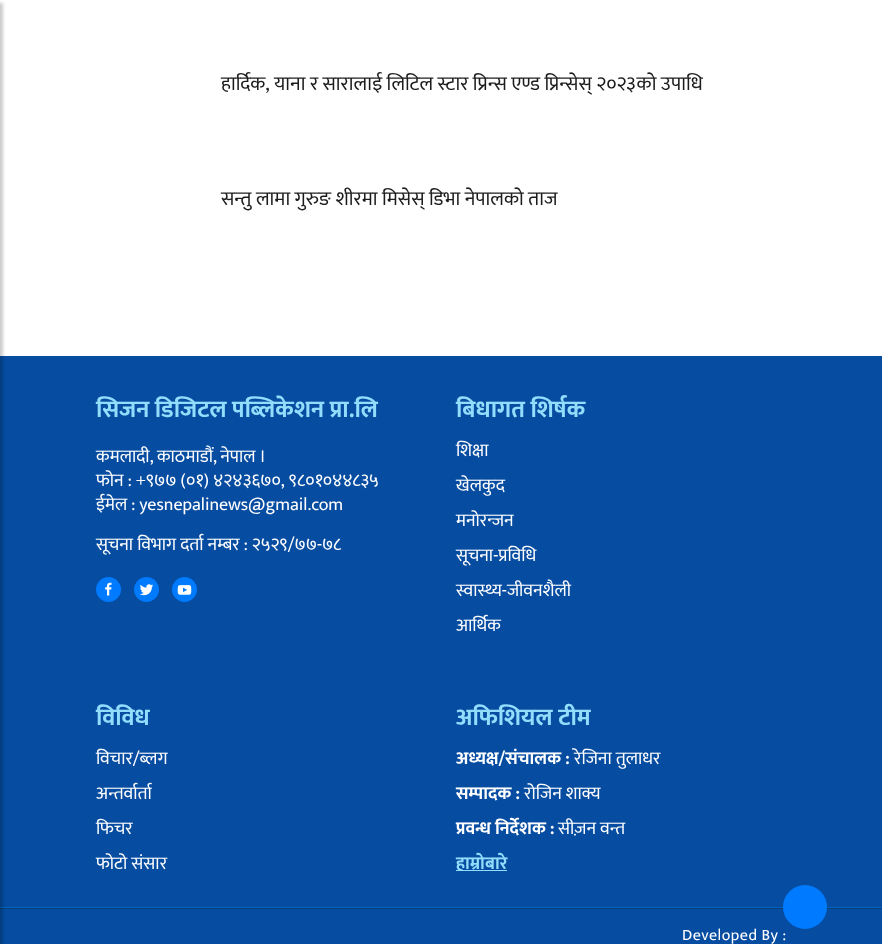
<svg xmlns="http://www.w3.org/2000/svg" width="882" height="944">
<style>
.a{font:20px Ek Mukta;fill:#1c1c1c}
.b{font:bold 24px Ek Mukta;fill:#92ddfc}
.c{font:18px Ek Mukta;fill:#fff}
.d{font:bold 18px Ek Mukta;fill:#fff}
.e{font:bold 18px Ek Mukta;fill:#92ddfc}
.f{font:16px Ek Mukta;letter-spacing:0.5px;fill:#fff}
</style>
<rect width="100%" height="100%" fill="#fff"/>
<path fill="#064ca1" d="M0 356h882v551H0z"/>
<path fill="#0062c4" d="M0 907h882v1H0z"/>
<path fill="#064ca1" d="M0 909h882v35H0z"/>
<path fill="#044275" d="M0 908h882v1H0z"/>
<path fill="#00000033" filter="blur(1.5px)" d="M-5 3h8v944H-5z"/>
<circle fill="#007bff" cx="108.5" cy="589.5" r="12.5"/>
<image href="1.png" x="105" y="582" width="7" height="14"/>
<circle fill="#007bff" cx="146.5" cy="589.5" r="12.5"/>
<image href="2.png" x="140" y="584" width="14" height="12"/>
<circle fill="#007bff" cx="184.5" cy="589.5" r="12.5"/>
<image href="3.png" x="177" y="585" width="15" height="10"/>
<path fill="#92ddfc" d="M456 870h51v1H456z"/>
<text class="a" x="221" y="90">हार्दिक, याना र सारालाई लिटिल स्टार प्रिन्स एण्ड प्रिन्सेस् २०२३को उपाधि</text>
<text class="a" x="221" y="205">सन्तु लामा गुरुङ शीरमा मिसेस् डिभा नेपालको ताज</text>
<text class="b" x="96" y="417">सिजन डिजिटल पब्लिकेशन प्रा.लि</text>
<text class="c" x="96" y="462" word-spacing="-0.5">कमलादी, काठमाडौं, नेपाल ।</text>
<text class="c" x="96" y="486">फोन : +९७७ (०१) ४२४३६७०, ९८०१०४४८३५</text>
<text class="c" x="96" y="510">ईमेल : yesnepalinews@gmail.com</text>
<text class="c" x="96" y="550">सूचना विभाग दर्ता नम्बर : २५२९/७७-७८</text>
<text class="b" x="456" y="417">बिधागत शिर्षक</text>
<text class="c" x="456" y="456">शिक्षा</text>
<text class="c" x="456" y="491">खेलकुद</text>
<text class="c" x="456" y="526">मनोरन्जन</text>
<text class="c" x="456" y="561">सूचना-प्रविधि</text>
<text class="c" x="456" y="596">स्वास्थ्य-जीवनशैली</text>
<text class="c" x="456" y="631">आर्थिक</text>
<text class="b" x="96" y="725">विविध</text>
<text class="c" x="96" y="764">विचार/ब्लग</text>
<text class="c" x="96" y="799">अन्तर्वार्ता</text>
<text class="c" x="96" y="834">फिचर</text>
<text class="c" x="96" y="869">फोटो संसार</text>
<text class="b" x="456" y="725">अफिशियल टीम</text>
<text class="d" x="456" y="764">अध्यक्ष/संचालक :</text>
<text class="c" x="574" y="764">रेजिना तुलाधर</text>
<text class="d" x="456" y="799">सम्पादक :</text>
<text class="c" x="524" y="799">रोजिन शाक्य</text>
<text class="d" x="456" y="834">प्रवन्ध निर्देशक :</text>
<text class="c" x="558" y="834">सीज़न वन्त</text>
<text class="e" x="456" y="869">हाम्रोबारे</text>
<text class="f" x="682" y="940">Developed By :</text>
<circle fill="#007bff" cx="805" cy="907" r="22"/>
</svg>
